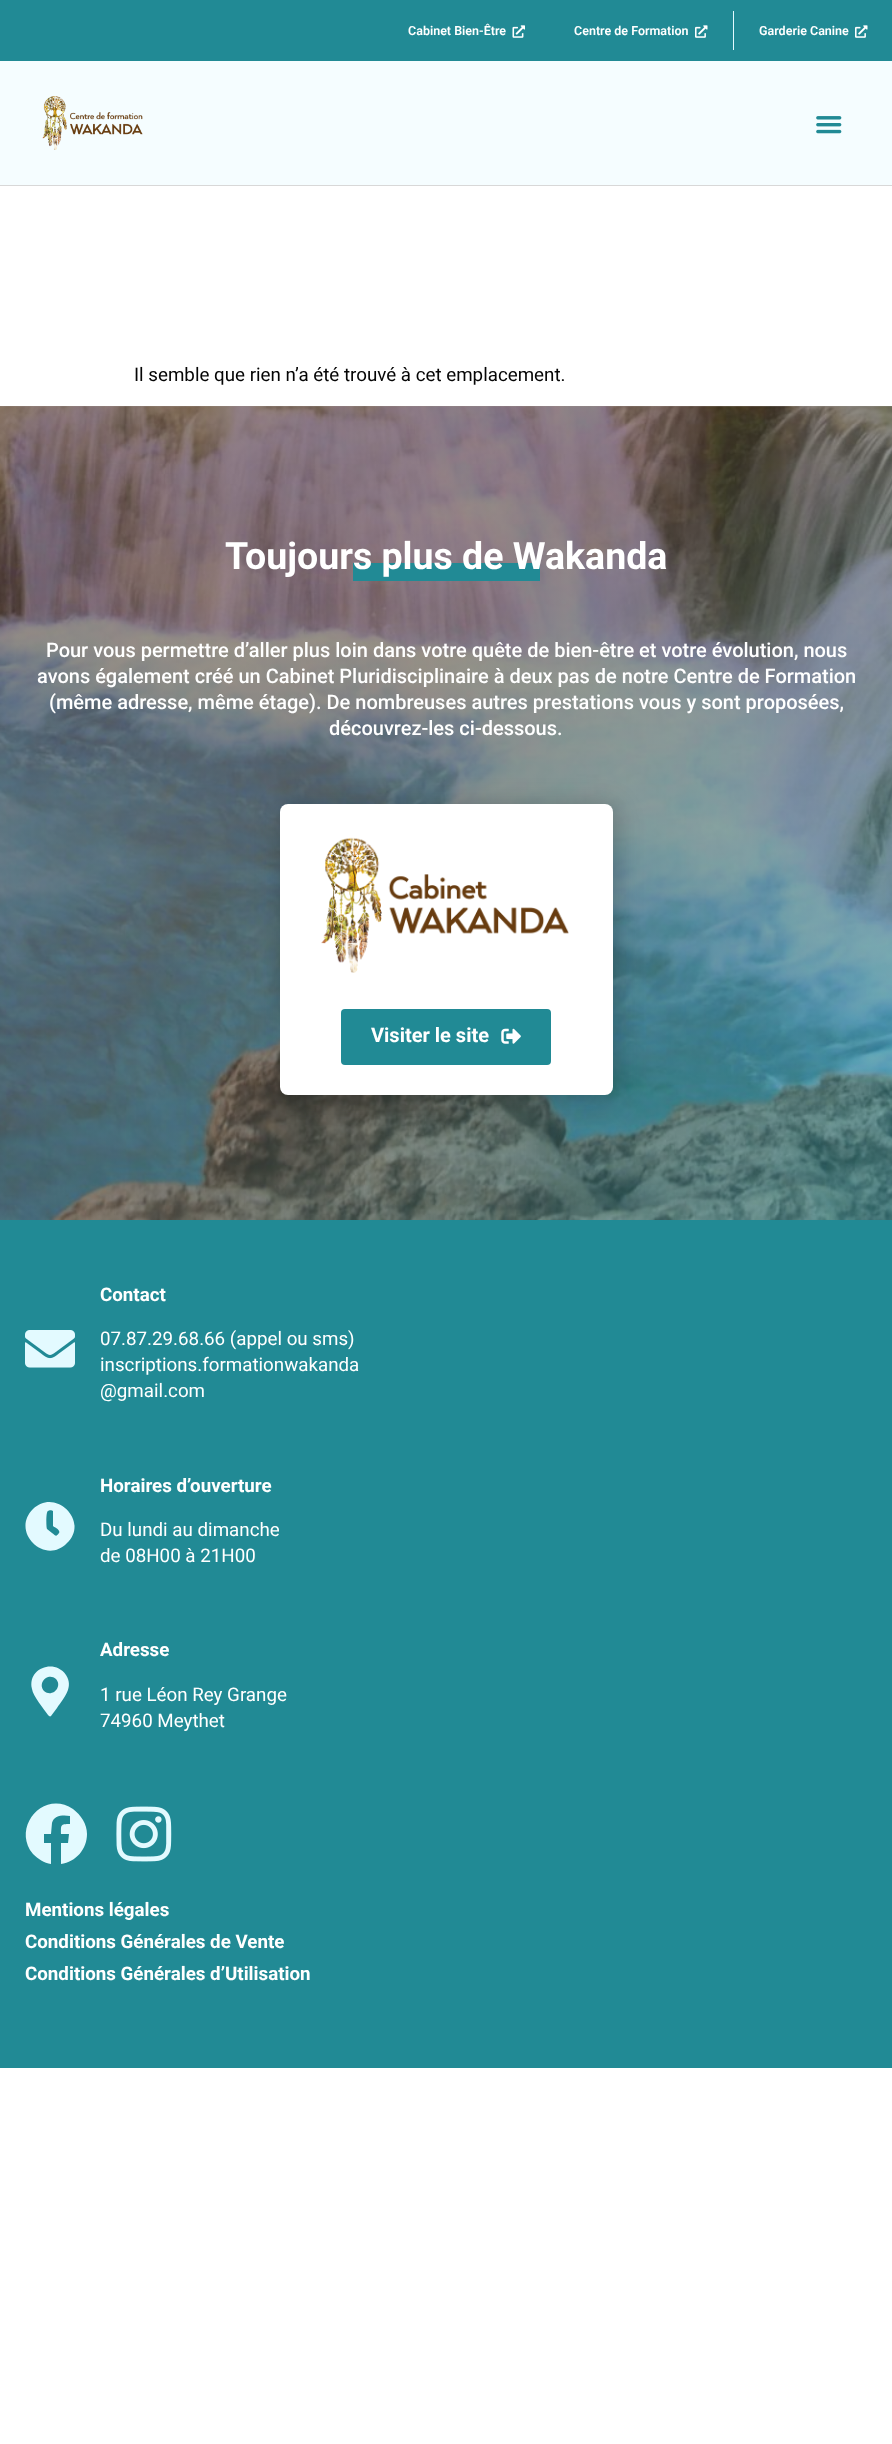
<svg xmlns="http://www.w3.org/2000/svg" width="892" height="2444">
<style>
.a{font:600 12.5px Roboto;fill:#fff}
.b{font:18.75px Roboto;fill:#050505}
.c{font:bold 37.5px Roboto;fill:#fff}
.d{font:500 20px Roboto;fill:#fff}
.e{font:bold 20px Roboto;fill:#fff}
.f{font:bold 18.75px Roboto;fill:#fff}
.g{font:18.75px Roboto;fill:#fff}
</style>
<defs>
<linearGradient id="g1" gradientUnits="userSpaceOnUse" x1="20" y1="387" x2="873" y2="1240"><stop offset="0.4" stop-color="#5a4132" stop-opacity="0.59"/><stop offset="1" stop-color="#218a95" stop-opacity="0.59"/></linearGradient>
</defs>
<rect width="100%" height="100%" fill="#fff"/>
<path fill="#218a95" d="M0 0h892v61H0z"/>
<image href="1.png" x="512" y="25" width="13" height="13"/>
<image href="2.png" x="695" y="25" width="13" height="13"/>
<path fill="#e3faff" d="M733 11h1v39H733z"/>
<image href="2.png" x="855" y="25" width="13" height="13"/>
<path fill="#f5fdff" d="M0 61h892v124H0z"/>
<path fill="#d8d8d8" d="M0 185h892v1H0z"/>
<image href="3.png" x="42" y="96" width="101" height="54"/>
<image href="4.png" x="816" y="116" width="26" height="18"/>
<image href="5.png" x="0" y="406" width="892" height="814"/>
<path fill="url(#g1)" d="M0 406h892v814H0z"/>
<path fill="#218a95" d="M353 563h187v18H353z"/>
<rect fill="#00000033" filter="blur(12.5px)" x="280" y="804" width="338" height="296" rx="10"/>
<rect fill="#fff" x="280" y="804" width="333" height="291" rx="8"/>
<image href="6.png" x="321" y="837" width="248" height="136"/>
<rect fill="#218a95" x="341" y="1009" width="210" height="56" rx="4"/>
<image href="7.png" x="501" y="1028" width="20" height="16"/>
<path fill="#218a95" d="M0 1220h892v848H0z"/>
<image href="8.png" x="25" y="1330" width="50" height="38"/>
<path fill="#e3faff" d="M33 1509c22-22 57 12 34 34c-22 23-57-11-34-34zm26 24c2-3-5-6-6-7v-15c-1-1-4-1-5 0c-2 0-2 16-1 18l5 4c4 3 4 4 7 0z"/>
<path fill="#e3faff" d="M48 1715c-4-6-15-19-16-26c-5-20 22-31 34-14c8 12-2 23-9 33l-6 8c-1 1-2 0-3-1zm-4-24c8 7 19-4 12-12c-8-7-19 4-12 12z"/>
<path fill="#e3faff" d="M87 1834c0 15-11 28-26 30v-21h7l1-9h-8c0-9-1-10 9-10v-8c-7-1-16-1-18 7l-1 11h-7v9h7v21c-7-1-13-5-18-10c-22-27 11-65 40-45c8 6 14 15 14 25z"/>
<image href="9.png" x="116" y="1806" width="56" height="56"/>
<text class="a" x="408" y="35">Cabinet Bien-Être</text>
<text class="a" x="574" y="35">Centre de Formation</text>
<text class="a" x="759" y="35">Garderie Canine</text>
<text class="b" x="134" y="381">Il semble que rien n’a été trouvé à cet emplacement.</text>
<text class="c" x="225" y="569">Toujours plus de Wakanda</text>
<text class="d" x="46" y="657">Pour vous permettre d’aller plus loin dans votre quête de bien-être et votre évolution, nous</text>
<text class="d" x="37" y="683">avons également créé un Cabinet Pluridisciplinaire à deux pas de notre Centre de Formation</text>
<text class="d" x="49" y="709">(même adresse, même étage). De nombreuses autres prestations vous y sont proposées,</text>
<text class="d" x="329" y="735">découvrez-les ci-dessous.</text>
<text class="e" x="371" y="1042">Visiter le site</text>
<text class="f" x="100" y="1301">Contact</text>
<text class="g" x="100" y="1345">07.87.29.68.66 (appel ou sms)</text>
<text class="g" x="100" y="1371">inscriptions.formationwakanda</text>
<text class="g" x="100" y="1397">@gmail.com</text>
<text class="f" x="100" y="1492">Horaires d’ouverture</text>
<text class="g" x="100" y="1536">Du lundi au dimanche</text>
<text class="g" x="100" y="1562">de 08H00 à 21H00</text>
<text class="f" x="100" y="1656">Adresse</text>
<text class="g" x="100" y="1701">1 rue Léon Rey Grange</text>
<text class="g" x="100" y="1727">74960 Meythet</text>
<text class="f" x="25" y="1916">Mentions légales</text>
<text class="f" x="25" y="1948">Conditions Générales de Vente</text>
<text class="f" x="25" y="1980">Conditions Générales d’Utilisation</text>
</svg>
